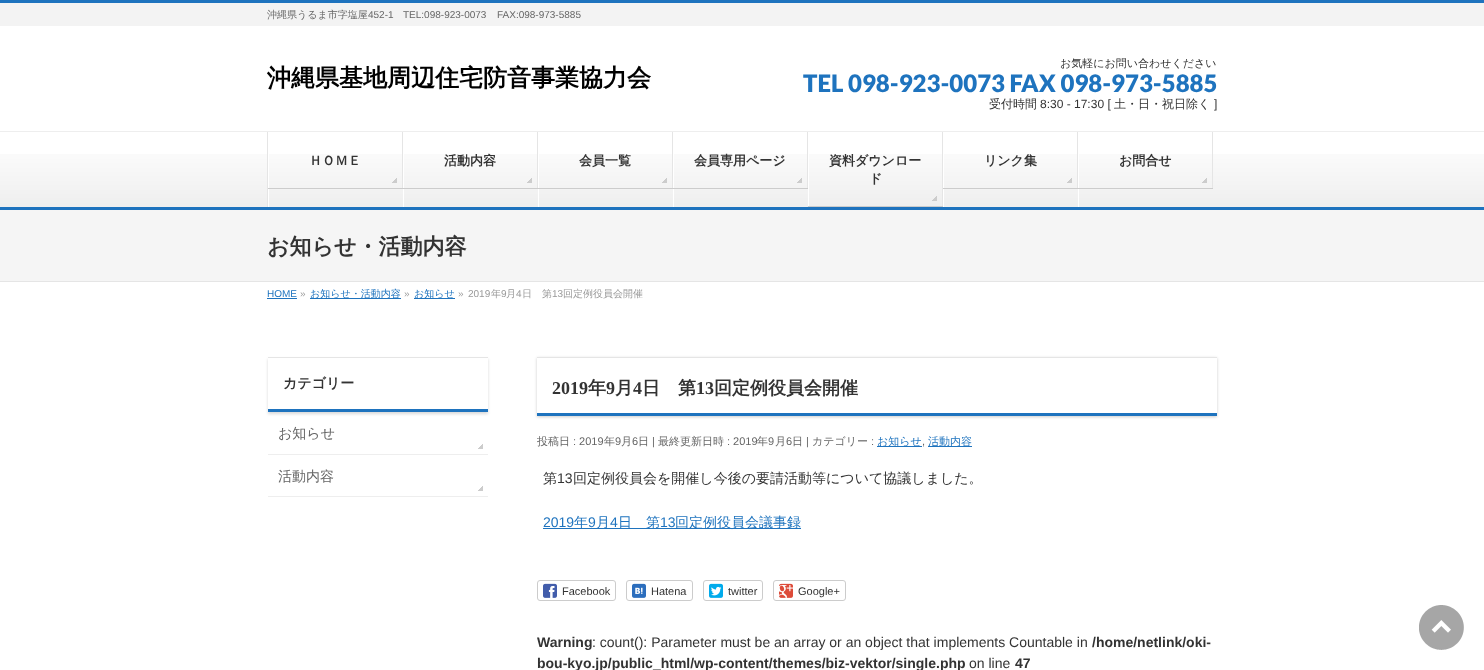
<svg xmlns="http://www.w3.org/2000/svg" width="1484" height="670">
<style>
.a{font:500 10px WenQuanYi Zen Hei;fill:#666}
.b{font:10px Liberation Sans;fill:#666}
.c{font:bold 24px WenQuanYi Zen Hei;fill:#000}
.d{font:500 11px WenQuanYi Zen Hei;fill:#333}
.e{font:900 24px Lato;fill:#1e73be}
.f{font:500 12px WenQuanYi Zen Hei;fill:#333}
.g{font:12px Liberation Sans;fill:#333}
.h{font:bold 13px WenQuanYi Zen Hei;fill:#333}
.i{font:bold 22px WenQuanYi Zen Hei;fill:#333}
.j{font:10px Liberation Sans;fill:#1e73be}
.k{font:10px Liberation Sans;fill:#999}
.l{font:500 10px WenQuanYi Zen Hei;fill:#1e73be}
.m{font:500 10px WenQuanYi Zen Hei;fill:#999}
.n{font:bold 14px WenQuanYi Zen Hei;fill:#333}
.o{font:500 14px WenQuanYi Zen Hei;fill:#666}
.p{font:bold 18px Liberation Serif;fill:#333}
.q{font:bold 18px WenQuanYi Zen Hei;fill:#333}
.r{font:500 11px WenQuanYi Zen Hei;fill:#666}
.s{font:11px Liberation Sans;fill:#666}
.t{font:500 11px WenQuanYi Zen Hei;fill:#1e73be}
.u{font:500 14px WenQuanYi Zen Hei;fill:#333}
.v{font:14px Liberation Sans;fill:#333}
.w{font:14px Liberation Sans;fill:#1e73be}
.x{font:500 14px WenQuanYi Zen Hei;fill:#1e73be}
.y{font:11px Liberation Sans;fill:#333}
.z{font:bold 14px Liberation Sans;fill:#333}
</style>
<defs>
<clipPath id="clip1"><path d="M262 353h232v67h-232zm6 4h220v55h-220z" clip-rule="evenodd"/></clipPath>
<clipPath id="clip2"><path d="M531 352h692v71h-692zm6 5h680v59h-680z" clip-rule="evenodd"/></clipPath>
</defs>
<rect width="100%" height="100%" fill="#fff"/>
<path fill="#f3f3f3" d="M0 3h1484v23H0z"/>
<path fill="#1e73be" d="M0 0h1484v3H0z"/>
<image href="1.png" x="0" y="154" width="1484" height="53"/>
<path fill="#eee" d="M0 131h1484v1H0z"/>
<path fill="#1e73be" d="M0 207h1484v3H0z"/>
<path fill="#e5e5e5" d="M267 132h1v75H267z"/>
<path fill="#fff" d="M268 154h1v53H268z"/>
<image href="2.png" x="392" y="178" width="5" height="5"/>
<path fill="#e5e5e5" d="M402 132h1v57H402z"/>
<path fill="#ccc" d="M268 188h135v1H268z"/>
<path fill="#fff" d="M403 154h1v53H403z"/>
<image href="2.png" x="527" y="178" width="5" height="5"/>
<path fill="#e5e5e5" d="M537 132h1v57H537z"/>
<path fill="#ccc" d="M403 188h135v1H403z"/>
<path fill="#fff" d="M538 154h1v53H538z"/>
<image href="2.png" x="662" y="178" width="5" height="5"/>
<path fill="#e5e5e5" d="M672 132h1v57H672z"/>
<path fill="#ccc" d="M538 188h135v1H538z"/>
<path fill="#fff" d="M673 154h1v53H673z"/>
<image href="2.png" x="797" y="178" width="5" height="5"/>
<path fill="#e5e5e5" d="M807 132h1v57H807z"/>
<path fill="#ccc" d="M673 188h135v1H673z"/>
<path fill="#fff" d="M808 154h1v53H808z"/>
<image href="3.png" x="932" y="196" width="5" height="5"/>
<path fill="#e5e5e5" d="M942 132h1v75H942z"/>
<path fill="#ccc" d="M808 206h135v1H808z"/>
<path fill="#fff" d="M943 154h1v53H943z"/>
<image href="2.png" x="1067" y="178" width="5" height="5"/>
<path fill="#e5e5e5" d="M1077 132h1v57H1077z"/>
<path fill="#ccc" d="M943 188h135v1H943z"/>
<path fill="#fff" d="M1078 154h1v53H1078z"/>
<image href="2.png" x="1202" y="178" width="5" height="5"/>
<path fill="#e5e5e5" d="M1212 132h1v57H1212z"/>
<path fill="#ccc" d="M1078 188h135v1H1078z"/>
<path fill="#f5f5f5" d="M0 210h1484v71H0z"/>
<path fill="#e5e5e5" d="M0 281h1484v1H0z"/>
<path fill="#1e73be" d="M267 298h30v1H267z"/>
<path fill="#1e73be" d="M310 298h91v1H310z"/>
<path fill="#1e73be" d="M414 298h41v1H414z"/>
<g clip-path="url(#clip1)">
<path fill="#00000026" filter="blur(1.5px)" d="M268 359h220v55H268z"/>
</g>
<path fill="#e5e5e5" d="M268 357h220v1H268z"/>
<path fill="#1e73be" d="M268 409h220v3H268z"/>
<path fill="#eee" d="M268 454h220v1H268z"/>
<image href="4.png" x="478" y="444" width="5" height="5"/>
<path fill="#eee" d="M268 496h220v1H268z"/>
<image href="4.png" x="478" y="486" width="5" height="5"/>
<g clip-path="url(#clip2)">
<path fill="#00000033" filter="blur(1.5px)" d="M537 358h680v59H537z"/>
</g>
<path fill="#e5e5e5" d="M537 357h680v1H537z"/>
<path fill="#1e73be" d="M537 413h680v3H537z"/>
<path fill="#1e73be" d="M877 446h45v1H877z"/>
<path fill="#1e73be" d="M928 446h44v1H928z"/>
<path fill="#1e73be" d="M543 528h258v1H543z"/>
<rect fill="none" stroke="#ccc" x="537.5" y="580.5" width="78" height="20" rx="2.5"/>
<image href="5.png" x="543" y="583" width="14" height="15"/>
<rect fill="none" stroke="#ccc" x="626.5" y="580.5" width="66" height="20" rx="2.5"/>
<image href="6.png" x="632" y="583" width="14" height="15"/>
<rect fill="none" stroke="#ccc" x="703.5" y="580.5" width="59" height="20" rx="2.5"/>
<image href="7.png" x="709" y="583" width="14" height="15"/>
<rect fill="none" stroke="#ccc" x="773.5" y="580.5" width="72" height="20" rx="2.5"/>
<image href="8.png" x="779" y="583" width="14" height="15"/>
<image href="9.png" x="1419" y="605" width="45" height="45"/>
<text class="a" x="267" y="18">沖縄県うるま市字塩屋</text>
<text class="b" x="368" y="18">452-1</text>
<text class="b" x="403" y="18">TEL:098-923-0073</text>
<text class="b" x="497" y="18">FAX:098-973-5885</text>
<text class="c" x="267" y="86">沖縄県基地周辺住宅防音事業協力会</text>
<text class="d" x="1060" y="67">お気軽にお問い合わせください</text>
<text class="e" x="803" y="92">TEL 098-923-0073 FAX 098-973-5885</text>
<text class="f" x="989" y="108">受付時間</text>
<text class="g" x="1040" y="108">8:30 - 17:30 [</text>
<text class="f" x="1114" y="108">土・日・祝日除く</text>
<text class="g" x="1214" y="108">]</text>
<text class="h" x="309" y="165">ＨＯＭＥ</text>
<text class="h" x="444" y="165">活動内容</text>
<text class="h" x="579" y="165">会員一覧</text>
<text class="h" x="694" y="165">会員専用ページ</text>
<text class="h" x="829" y="165">資料ダウンロー</text>
<text class="h" x="869" y="183">ド</text>
<text class="h" x="984" y="165">リンク集</text>
<text class="h" x="1119" y="165">お問合せ</text>
<text class="i" x="267" y="254">お知らせ・活動内容</text>
<text class="j" x="267" y="297">HOME</text>
<text class="k" x="300" y="297">»</text>
<text class="l" x="310" y="297">お知らせ・活動内容</text>
<text class="k" x="404" y="297">»</text>
<text class="l" x="414" y="297">お知らせ</text>
<text class="k" x="458" y="297">»</text>
<text class="k" x="468" y="297">2019</text>
<text class="m" x="491" y="297">年</text>
<text class="k" x="501" y="297">9</text>
<text class="m" x="506" y="297">月</text>
<text class="k" x="516" y="297">4</text>
<text class="m" x="522" y="297">日　第</text>
<text class="k" x="552" y="297">13</text>
<text class="m" x="563" y="297">回定例役員会開催</text>
<text class="n" x="283" y="388">カテゴリー</text>
<text class="o" x="278" y="438">お知らせ</text>
<text class="o" x="278" y="481">活動内容</text>
<text class="p" x="552" y="394">2019</text>
<text class="q" x="588" y="394">年</text>
<text class="p" x="606" y="394">9</text>
<text class="q" x="615" y="394">月</text>
<text class="p" x="633" y="394">4</text>
<text class="q" x="642" y="394">日　第</text>
<text class="p" x="696" y="394">13</text>
<text class="q" x="714" y="394">回定例役員会開催</text>
<text class="r" x="537" y="445">投稿日</text>
<text class="s" x="573" y="445">: 2019</text>
<text class="r" x="604" y="445">年</text>
<text class="s" x="615" y="445">9</text>
<text class="r" x="621" y="445">月</text>
<text class="s" x="632" y="445">6</text>
<text class="r" x="638" y="445">日</text>
<text class="s" x="652" y="445">|</text>
<text class="r" x="658" y="445">最終更新日時</text>
<text class="s" x="727" y="445">: 2019</text>
<text class="r" x="757" y="445">年</text>
<text class="s" x="768" y="445">9</text>
<text class="r" x="775" y="445">月</text>
<text class="s" x="786" y="445">6</text>
<text class="r" x="792" y="445">日</text>
<text class="s" x="806" y="445">|</text>
<text class="r" x="812" y="445">カテゴリー</text>
<text class="s" x="871" y="445">:</text>
<text class="t" x="877" y="445">お知らせ</text>
<text class="s" x="922" y="445">,</text>
<text class="t" x="928" y="445">活動内容</text>
<text class="u" x="543" y="483">第</text>
<text class="v" x="557" y="483">13</text>
<text class="u" x="573" y="483">回定例役員会を開催し今後の要請活動等について協議しました。</text>
<text class="w" x="543" y="527">2019</text>
<text class="x" x="574" y="527">年</text>
<text class="w" x="588" y="527">9</text>
<text class="x" x="596" y="527">月</text>
<text class="w" x="610" y="527">4</text>
<text class="x" x="618" y="527">日　第</text>
<text class="w" x="660" y="527">13</text>
<text class="x" x="675" y="527">回定例役員会議事録</text>
<text class="y" x="562" y="595">Facebook</text>
<text class="y" x="651" y="595">Hatena</text>
<text class="y" x="728" y="595">twitter</text>
<text class="y" x="798" y="595">Google+</text>
<text class="z" x="537" y="647">Warning</text>
<text class="v" x="592" y="647">: count(): Parameter must be an array or an object that implements Countable in</text>
<text class="z" x="1092" y="647">/home/netlink/oki-</text>
<text class="z" x="537" y="668">bou-kyo.jp/public_html/wp-content/themes/biz-vektor/single.php</text>
<text class="v" x="969" y="668">on line</text>
<text class="z" x="1015" y="668">47</text>
</svg>
